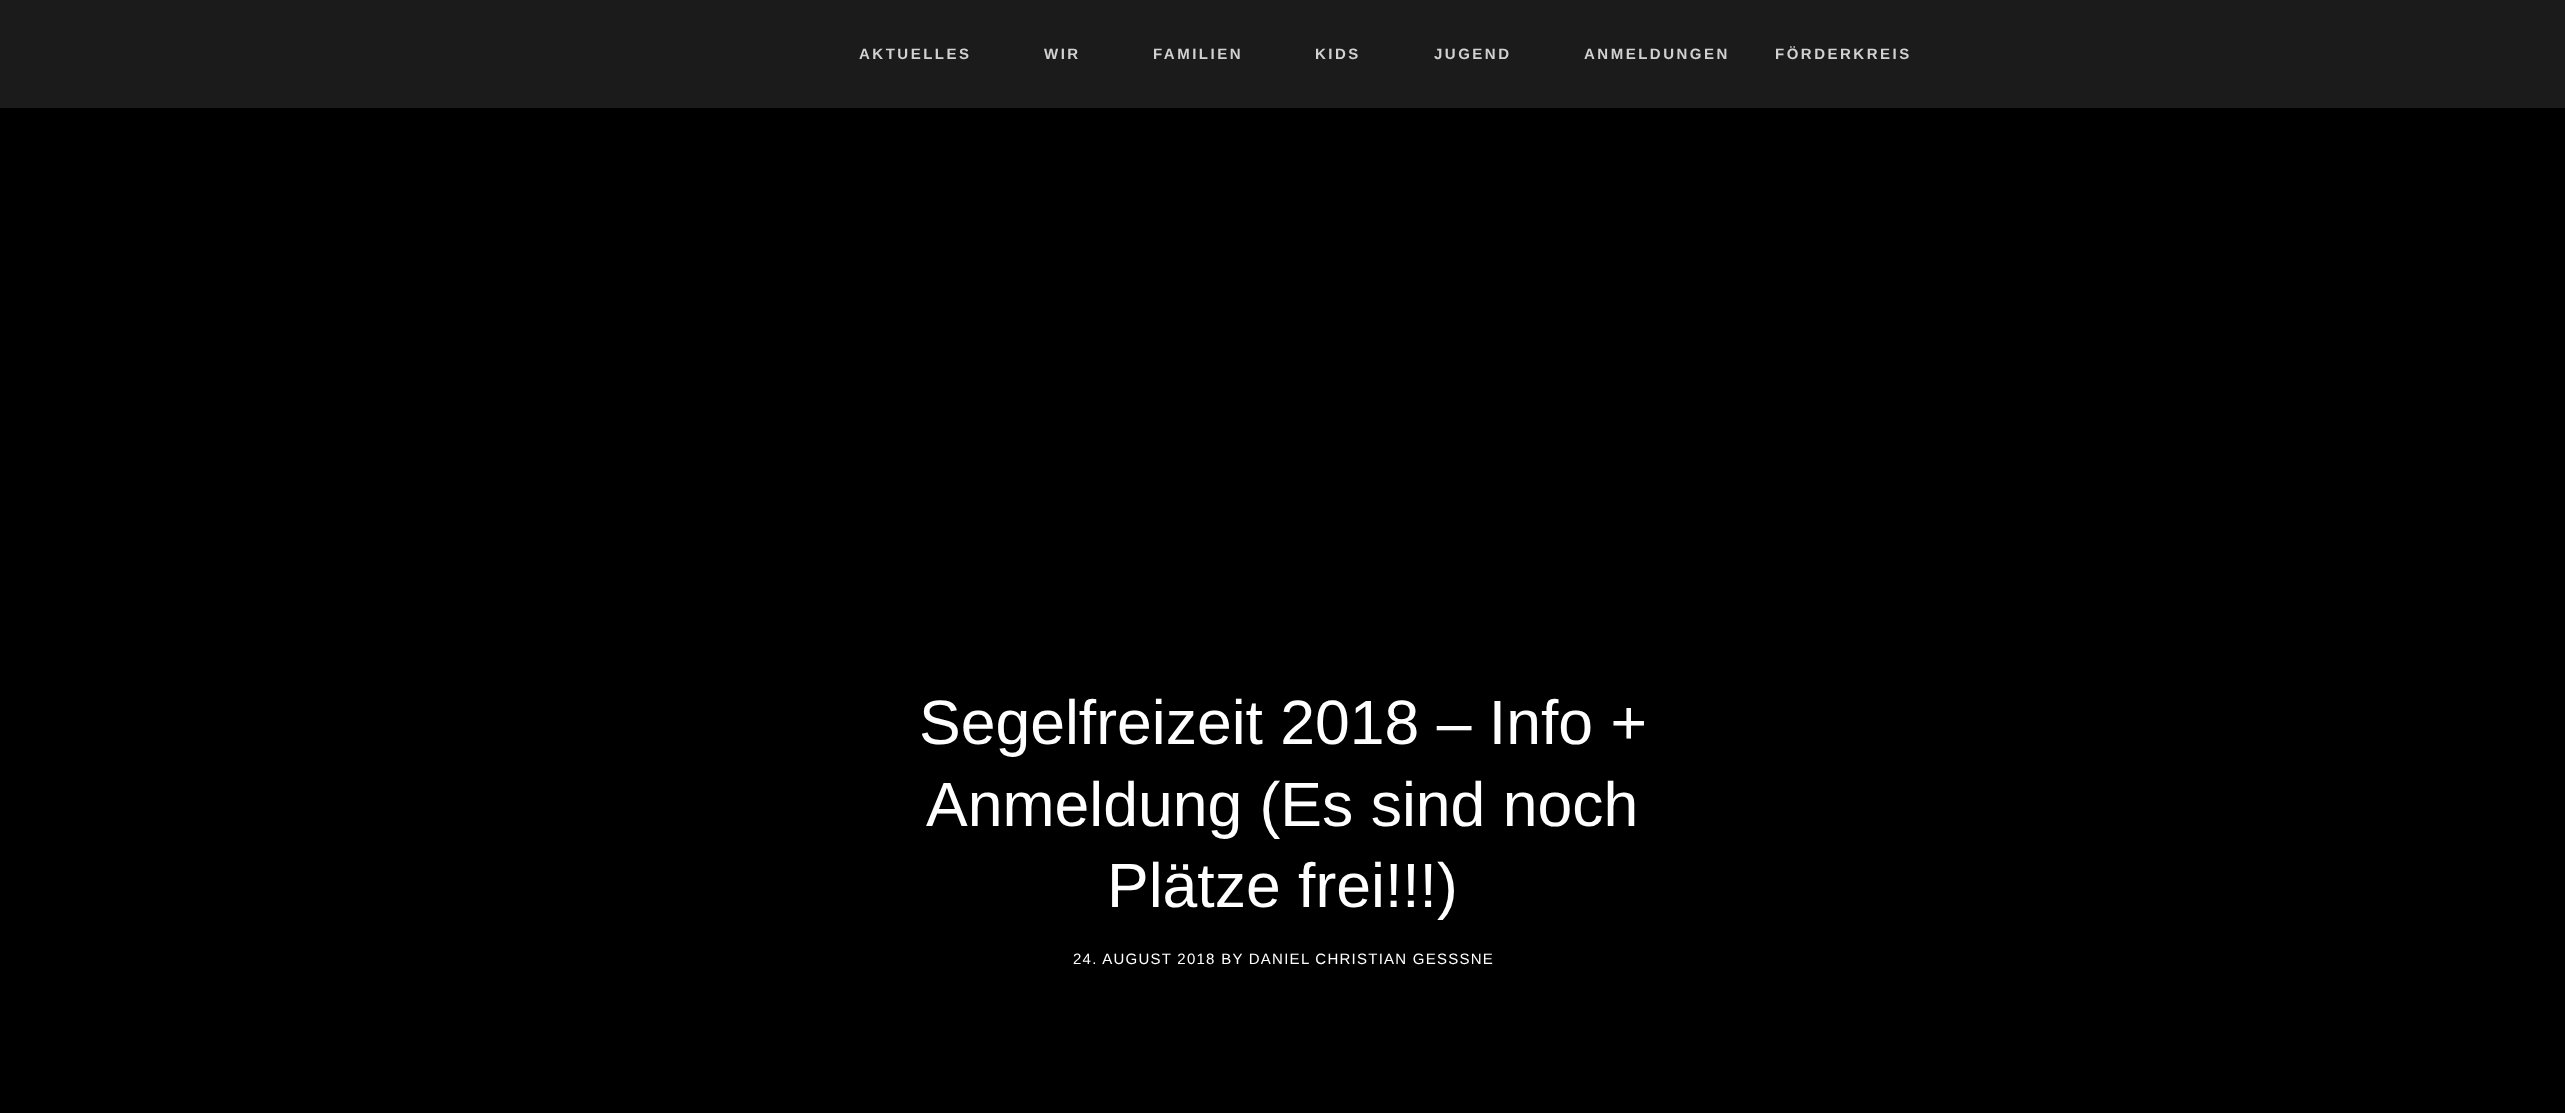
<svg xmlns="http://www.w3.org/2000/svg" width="2565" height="1113">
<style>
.a{font:bold 15px Liberation Sans;letter-spacing:2.5px;fill:#d1d1d1}
.b{font:62.5px Liberation Sans;fill:#fff}
.c{font:15px Liberation Sans;letter-spacing:1.25px;fill:#fff}
</style>
<rect width="100%" height="100%" fill="#1b1b1b"/>
<path fill="#000" d="M0 108h2565v1005H0z"/>
<text class="a" x="859" y="59">AKTUELLES</text>
<text class="a" x="1044" y="59">WIR</text>
<text class="a" x="1153" y="59">FAMILIEN</text>
<text class="a" x="1315" y="59">KIDS</text>
<text class="a" x="1434" y="59">JUGEND</text>
<text class="a" x="1584" y="59">ANMELDUNGEN</text>
<text class="a" x="1775" y="59">FÖRDERKREIS</text>
<text class="b" x="919" y="744">Segelfreizeit 2018 – Info +</text>
<text class="b" x="926" y="826">Anmeldung (Es sind noch</text>
<text class="b" x="1107" y="907">Plätze frei!!!)</text>
<text class="c" x="1073" y="964">24. AUGUST 2018 BY DANIEL CHRISTIAN GESSSNE</text>
</svg>
